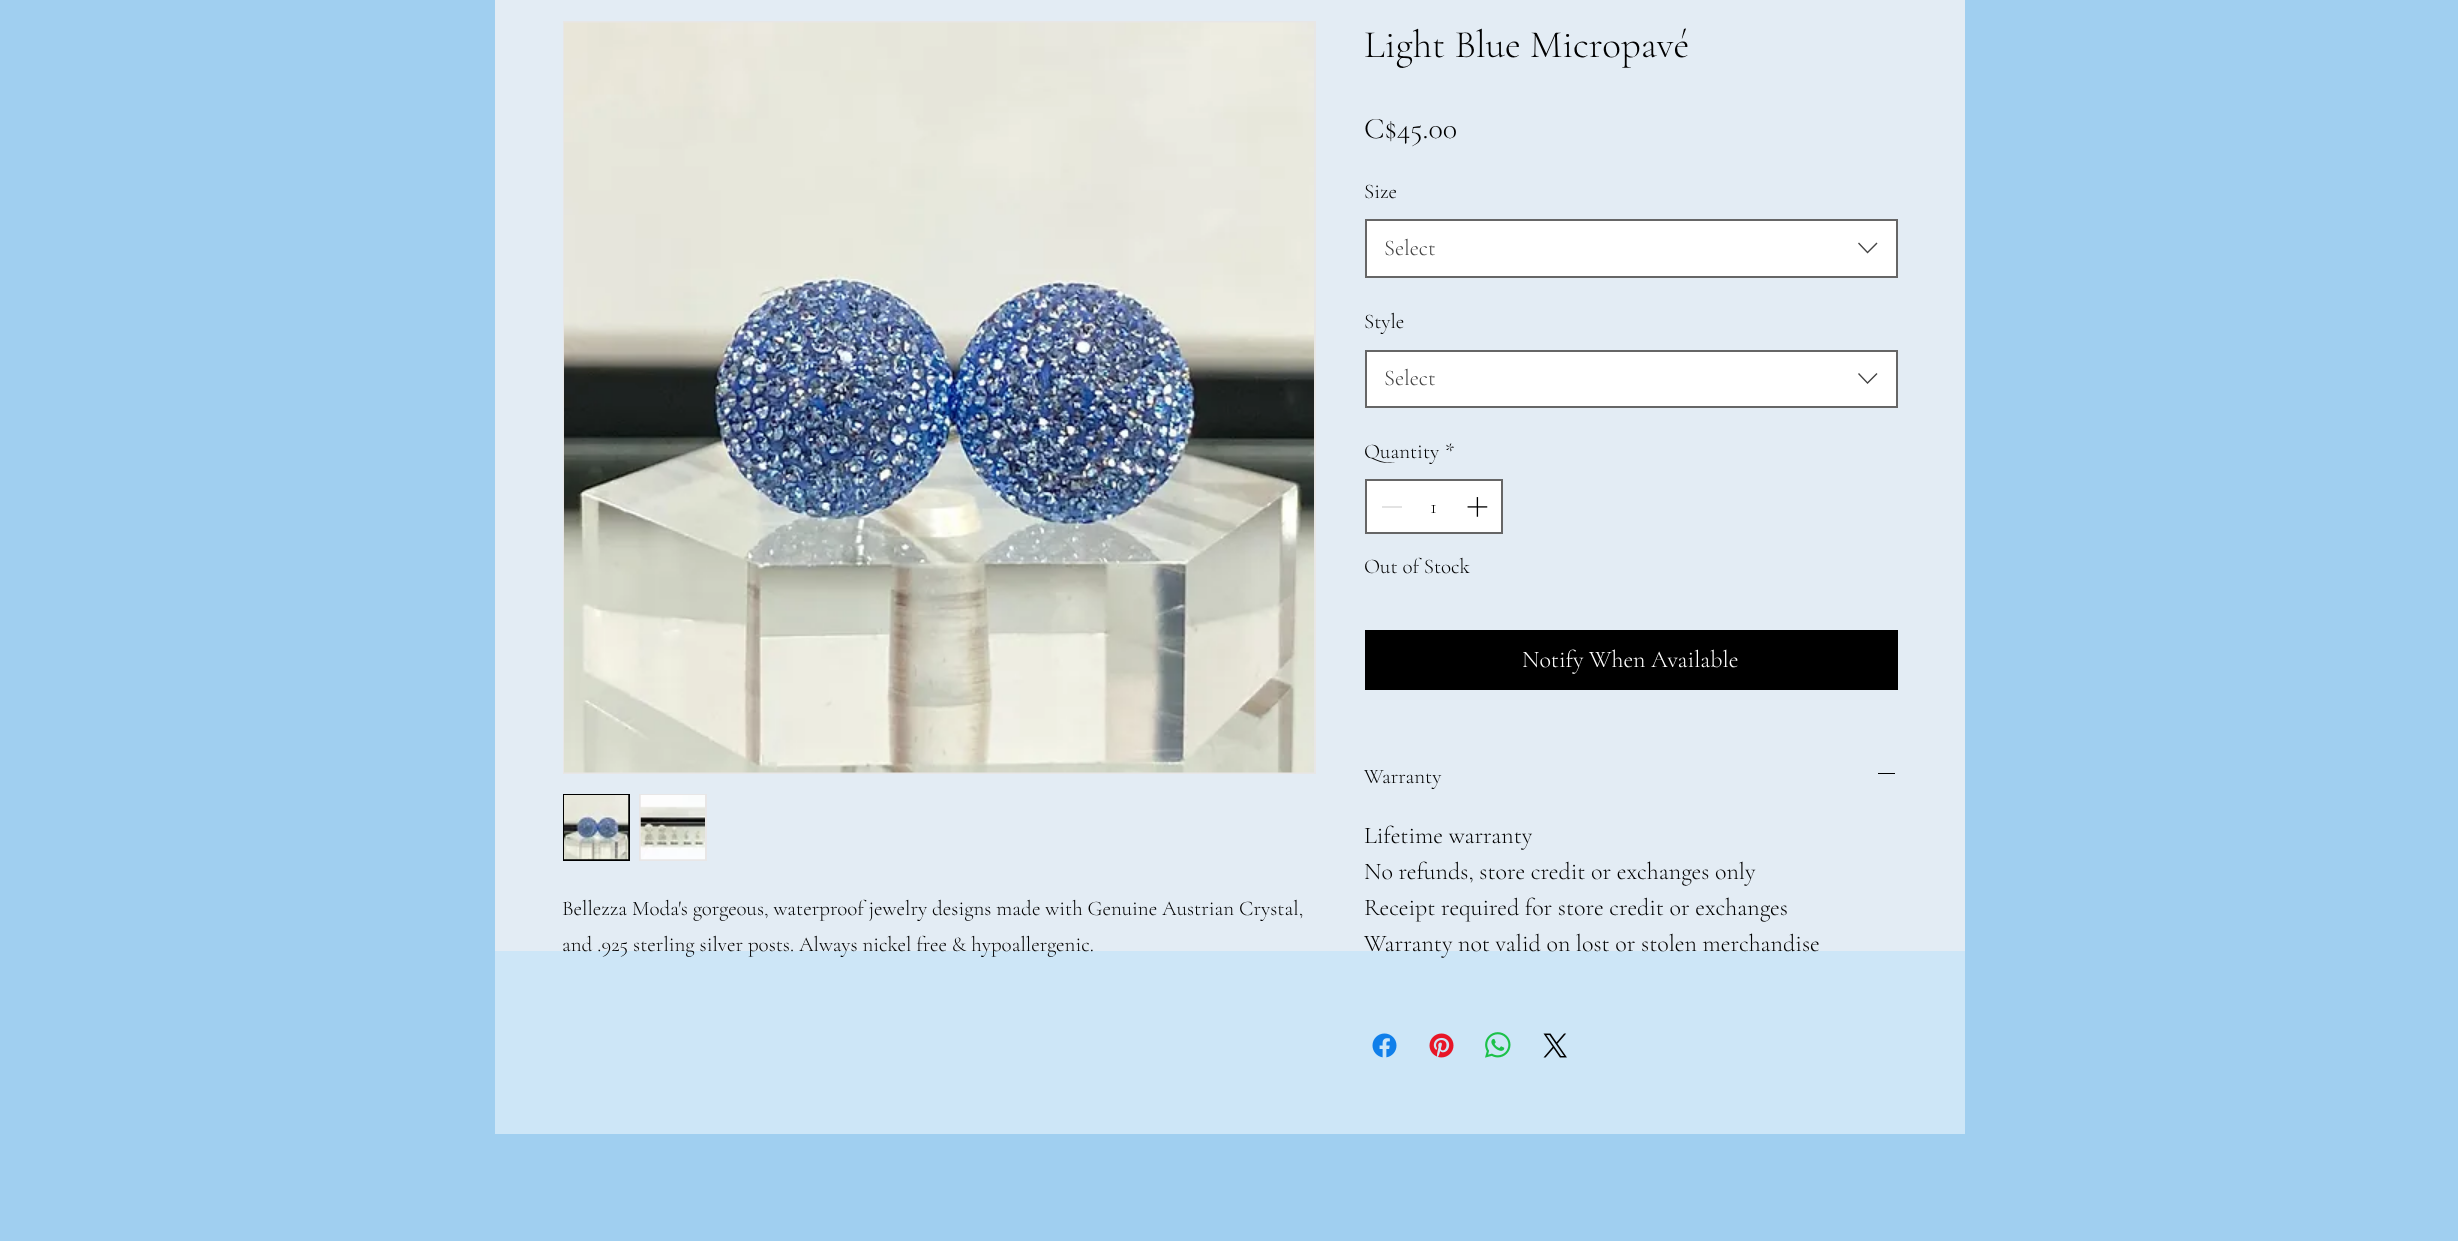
<svg xmlns="http://www.w3.org/2000/svg" width="2458" height="1241">
<style>
.a{font:300 21px Cormorant Garamond;fill:#000}
.b{font:300 39px Cormorant Garamond;fill:#000}
.c{font:300 30px Cormorant Garamond;fill:#000}
.d{font:300 22.5px Cormorant Garamond;fill:#444}
.e{font:300 24px Cormorant Garamond;fill:#fff}
.f{font:300 24px Cormorant Garamond;fill:#000}
</style>
<rect width="100%" height="100%" fill="#a0cff0"/>
<path fill="#e3ecf4" d="M495 0h1470v951H495z"/>
<path fill="none" stroke="#e8e6e6" stroke-width="2" d="M564 22h751v751H564z"/>
<image href="1.png" x="564" y="22" width="750" height="751"/>
<path fill="none" stroke="#000" stroke-width="2" d="M564 795h65v65H564z"/>
<image href="2.png" x="564" y="795" width="65" height="65"/>
<path fill="none" stroke="#e8e6e6" stroke-width="2" d="M640 795h66v65H640z"/>
<image href="3.png" x="640" y="795" width="65" height="65"/>
<path fill="#fff" stroke="#666" stroke-width="2" d="M1366 220h531v57H1366z"/>
<path fill="#444" fill-rule="evenodd" d="M1876.5 242.5l1 1l-10 10l-9.5-10l1-1l8.5 9z"/>
<path fill="#fff" stroke="#666" stroke-width="2" d="M1366 351h531v56H1366z"/>
<path fill="#444" fill-rule="evenodd" d="M1876.5 373l1 1l-10 10l-9.5-10l1-1l8.5 9z"/>
<path fill="#fff" stroke="#666" stroke-width="2" d="M1366 480h136v53H1366z"/>
<path fill="#e3e3e3" d="M1382 506h20v2H1382z"/>
<image href="4.png" x="1467" y="497" width="21" height="20"/>
<path fill="#000" d="M1365 630h533v60H1365z"/>
<path fill="#000" d="M1878 773h17v1H1878z"/>
<path fill="#cde6f7" d="M495 951h1470v183H495z"/>
<image href="5.png" x="1372" y="1033" width="25" height="25"/>
<image href="6.png" x="1429" y="1033" width="25" height="25"/>
<image href="7.png" x="1485" y="1032" width="26" height="26"/>
<image href="8.png" x="1543" y="1033" width="24" height="25"/>
<text class="a" x="562" y="915">Bellezza Moda's gorgeous, waterproof jewelry designs made with Genuine Austrian Crystal,</text>
<text class="a" x="562" y="951">and .925 sterling silver posts. Always nickel free &amp; hypoallergenic.</text>
<text class="b" x="1364" y="57">Light Blue Micropavé</text>
<text class="c" x="1364" y="138">C$45.00</text>
<text class="a" x="1364" y="198">Size</text>
<text class="d" x="1384" y="255">Select</text>
<text class="a" x="1364" y="328">Style</text>
<text class="d" x="1384" y="385">Select</text>
<text class="a" x="1364" y="458">Quantity</text>
<text class="a" x="1445" y="458">*</text>
<text class="a" x="1430" y="513">1</text>
<text class="a" x="1364" y="573">Out of Stock</text>
<text class="e" x="1522" y="667">Notify When Available</text>
<text class="a" x="1364" y="783">Warranty</text>
<text class="f" x="1364" y="843">Lifetime warranty</text>
<text class="f" x="1364" y="879">No refunds, store credit or exchanges only</text>
<text class="f" x="1364" y="915">Receipt required for store credit or exchanges</text>
<text class="f" x="1364" y="951">Warranty not valid on lost or stolen merchandise</text>
</svg>
